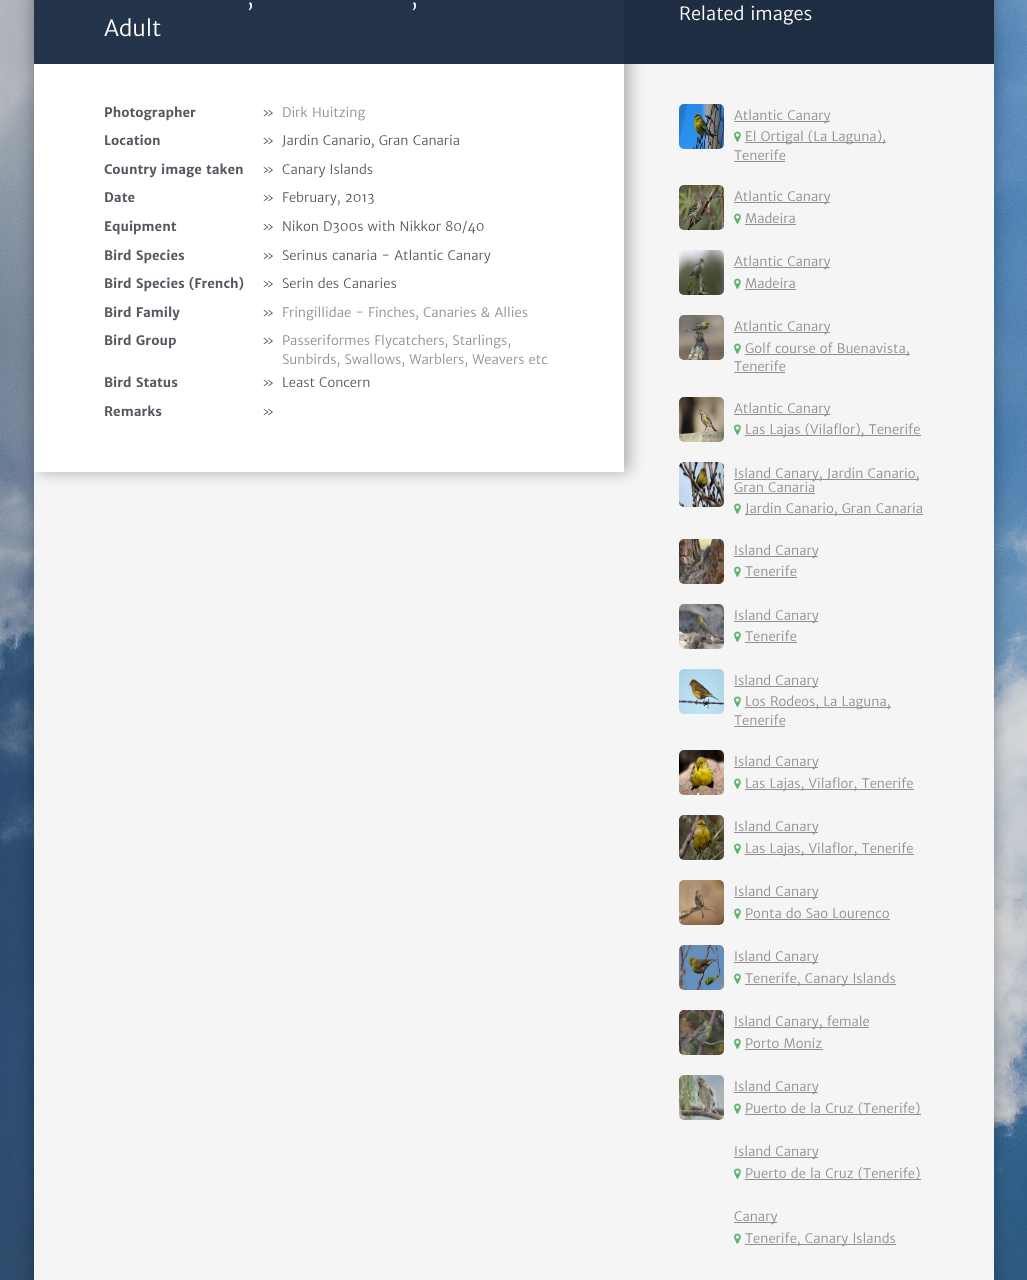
<svg xmlns="http://www.w3.org/2000/svg" width="1027" height="1280">
<style>
.a{font:22px Merriweather Sans;fill:#fff}
.b{font:bold 13px Merriweather Sans;fill:#595560}
.c{font:13px Merriweather Sans;fill:#595560}
.d{font:13px Merriweather Sans;fill:#918e95}
.e{font:18px Merriweather Sans;fill:#fff}
</style>
<defs>
<clipPath id="clip1"><path d="M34 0h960v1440H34z"/></clipPath>
</defs>
<rect width="100%" height="100%" fill="#fff"/>
<image href="1.png" x="0" y="0" width="1027" height="1280"/>
<path fill="#0000004d" filter="blur(7.5px)" d="M34 -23h960v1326H34z"/>
<path fill="#f6f5f5" d="M34 64h960v1216H34z"/>
<g clip-path="url(#clip1)">
<path fill="#0000004d" filter="blur(7.5px)" d="M39 -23h590v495H39z"/>
</g>
<path fill="#fff" d="M34 64h590v408H34z"/>
<path fill="#24344b" d="M34 0h590v64H34z"/>
<path fill="#1f2d42" d="M624 0h370v64H624z"/>
<image href="2.png" x="679" y="104" width="45" height="45"/>
<path fill="#918e95" d="M734 121h96v1H734z"/>
<image href="3.png" x="734" y="131" width="7" height="11"/>
<path fill="#918e95" d="M745 142h141v1H745z"/>
<path fill="#918e95" d="M734 161h51v1H734z"/>
<image href="4.png" x="679" y="185" width="45" height="45"/>
<path fill="#918e95" d="M734 202h96v1H734z"/>
<image href="3.png" x="734" y="213" width="7" height="11"/>
<path fill="#918e95" d="M745 224h51v1H745z"/>
<image href="5.png" x="679" y="250" width="45" height="45"/>
<path fill="#918e95" d="M734 267h96v1H734z"/>
<image href="3.png" x="734" y="278" width="7" height="11"/>
<path fill="#918e95" d="M745 289h51v1H745z"/>
<image href="6.png" x="679" y="315" width="45" height="45"/>
<path fill="#918e95" d="M734 332h96v1H734z"/>
<image href="3.png" x="734" y="343" width="7" height="11"/>
<path fill="#918e95" d="M745 354h165v1H745z"/>
<path fill="#918e95" d="M734 372h51v1H734z"/>
<image href="7.png" x="679" y="397" width="45" height="45"/>
<path fill="#918e95" d="M734 414h96v1H734z"/>
<image href="3.png" x="734" y="424" width="7" height="11"/>
<path fill="#918e95" d="M745 435h176v1H745z"/>
<image href="8.png" x="679" y="462" width="45" height="45"/>
<path fill="#918e95" d="M734 479h185v1H734z"/>
<path fill="#918e95" d="M734 493h81v1H734z"/>
<image href="3.png" x="734" y="503" width="7" height="11"/>
<path fill="#918e95" d="M745 514h178v1H745z"/>
<image href="9.png" x="679" y="539" width="45" height="45"/>
<path fill="#918e95" d="M734 556h84v1H734z"/>
<image href="3.png" x="734" y="566" width="7" height="11"/>
<path fill="#918e95" d="M745 577h52v1H745z"/>
<image href="10.png" x="679" y="604" width="45" height="45"/>
<path fill="#918e95" d="M734 621h84v1H734z"/>
<image href="3.png" x="734" y="631" width="7" height="11"/>
<path fill="#918e95" d="M745 642h52v1H745z"/>
<image href="11.png" x="679" y="669" width="45" height="45"/>
<path fill="#918e95" d="M734 686h84v1H734z"/>
<image href="3.png" x="734" y="696" width="7" height="11"/>
<path fill="#918e95" d="M745 707h146v1H745z"/>
<path fill="#918e95" d="M734 726h51v1H734z"/>
<image href="12.png" x="679" y="750" width="45" height="45"/>
<path fill="#918e95" d="M734 767h84v1H734z"/>
<image href="3.png" x="734" y="778" width="7" height="11"/>
<path fill="#918e95" d="M745 789h169v1H745z"/>
<image href="13.png" x="679" y="815" width="45" height="45"/>
<path fill="#918e95" d="M734 832h84v1H734z"/>
<image href="3.png" x="734" y="843" width="7" height="11"/>
<path fill="#918e95" d="M745 854h169v1H745z"/>
<image href="14.png" x="679" y="880" width="45" height="45"/>
<path fill="#918e95" d="M734 897h84v1H734z"/>
<image href="3.png" x="734" y="908" width="7" height="11"/>
<path fill="#918e95" d="M745 919h145v1H745z"/>
<image href="15.png" x="679" y="945" width="45" height="45"/>
<path fill="#918e95" d="M734 962h84v1H734z"/>
<image href="3.png" x="734" y="973" width="7" height="11"/>
<path fill="#918e95" d="M745 984h151v1H745z"/>
<image href="16.png" x="679" y="1010" width="45" height="45"/>
<path fill="#918e95" d="M734 1027h135v1H734z"/>
<image href="3.png" x="734" y="1038" width="7" height="11"/>
<path fill="#918e95" d="M745 1049h78v1H745z"/>
<image href="17.png" x="679" y="1075" width="45" height="45"/>
<path fill="#918e95" d="M734 1092h84v1H734z"/>
<image href="3.png" x="734" y="1103" width="7" height="11"/>
<path fill="#918e95" d="M745 1114h176v1H745z"/>
<path fill="#918e95" d="M734 1157h84v1H734z"/>
<image href="3.png" x="734" y="1168" width="7" height="11"/>
<path fill="#918e95" d="M745 1179h176v1H745z"/>
<path fill="#918e95" d="M734 1222h43v1H734z"/>
<image href="3.png" x="734" y="1233" width="7" height="11"/>
<path fill="#918e95" d="M745 1244h151v1H745z"/>
<text class="a" x="247" y="5">,</text>
<text class="a" x="411" y="5">,</text>
<text class="a" x="104" y="36">Adult</text>
<text class="b" x="104" y="117">Photographer</text>
<text class="c" x="262" y="117">»</text>
<text class="d" x="282" y="117">Dirk Huitzing</text>
<text class="b" x="104" y="145">Location</text>
<text class="c" x="262" y="145">»</text>
<text class="c" x="282" y="145">Jardin Canario, Gran Canaria</text>
<text class="b" x="104" y="174">Country image taken</text>
<text class="c" x="262" y="174">»</text>
<text class="c" x="282" y="174">Canary Islands</text>
<text class="b" x="104" y="202">Date</text>
<text class="c" x="262" y="202">»</text>
<text class="c" x="282" y="202">February, 2013</text>
<text class="b" x="104" y="231">Equipment</text>
<text class="c" x="262" y="231">»</text>
<text class="c" x="282" y="231">Nikon D300s with Nikkor 80/40</text>
<text class="b" x="104" y="260">Bird Species</text>
<text class="c" x="262" y="260">»</text>
<text class="c" x="282" y="260">Serinus canaria - Atlantic Canary</text>
<text class="b" x="104" y="288">Bird Species (French)</text>
<text class="c" x="262" y="288">»</text>
<text class="c" x="282" y="288">Serin des Canaries</text>
<text class="b" x="104" y="317">Bird Family</text>
<text class="c" x="262" y="317">»</text>
<text class="d" x="282" y="317">Fringillidae - Finches, Canaries &amp; Allies</text>
<text class="b" x="104" y="345">Bird Group</text>
<text class="c" x="262" y="345">»</text>
<text class="d" x="282" y="345">Passeriformes Flycatchers, Starlings,</text>
<text class="d" x="282" y="364">Sunbirds, Swallows, Warblers, Weavers etc</text>
<text class="b" x="104" y="387">Bird Status</text>
<text class="c" x="262" y="387">»</text>
<text class="c" x="282" y="387">Least Concern</text>
<text class="b" x="104" y="416">Remarks</text>
<text class="c" x="262" y="416">»</text>
<text class="e" x="679" y="20">Related images</text>
<text class="d" x="734" y="120">Atlantic Canary</text>
<text class="d" x="745" y="141">El Ortigal (La Laguna),</text>
<text class="d" x="734" y="160">Tenerife</text>
<text class="d" x="734" y="201">Atlantic Canary</text>
<text class="d" x="745" y="223">Madeira</text>
<text class="d" x="734" y="266">Atlantic Canary</text>
<text class="d" x="745" y="288">Madeira</text>
<text class="d" x="734" y="331">Atlantic Canary</text>
<text class="d" x="745" y="353">Golf course of Buenavista,</text>
<text class="d" x="734" y="371">Tenerife</text>
<text class="d" x="734" y="413">Atlantic Canary</text>
<text class="d" x="745" y="434">Las Lajas (Vilaflor), Tenerife</text>
<text class="d" x="734" y="478">Island Canary, Jardin Canario,</text>
<text class="d" x="734" y="492">Gran Canaria</text>
<text class="d" x="745" y="513">Jardin Canario, Gran Canaria</text>
<text class="d" x="734" y="555">Island Canary</text>
<text class="d" x="745" y="576">Tenerife</text>
<text class="d" x="734" y="620">Island Canary</text>
<text class="d" x="745" y="641">Tenerife</text>
<text class="d" x="734" y="685">Island Canary</text>
<text class="d" x="745" y="706">Los Rodeos, La Laguna,</text>
<text class="d" x="734" y="725">Tenerife</text>
<text class="d" x="734" y="766">Island Canary</text>
<text class="d" x="745" y="788">Las Lajas, Vilaflor, Tenerife</text>
<text class="d" x="734" y="831">Island Canary</text>
<text class="d" x="745" y="853">Las Lajas, Vilaflor, Tenerife</text>
<text class="d" x="734" y="896">Island Canary</text>
<text class="d" x="745" y="918">Ponta do Sao Lourenco</text>
<text class="d" x="734" y="961">Island Canary</text>
<text class="d" x="745" y="983">Tenerife, Canary Islands</text>
<text class="d" x="734" y="1026">Island Canary, female</text>
<text class="d" x="745" y="1048">Porto Moniz</text>
<text class="d" x="734" y="1091">Island Canary</text>
<text class="d" x="745" y="1113">Puerto de la Cruz (Tenerife)</text>
<text class="d" x="734" y="1156">Island Canary</text>
<text class="d" x="745" y="1178">Puerto de la Cruz (Tenerife)</text>
<text class="d" x="734" y="1221">Canary</text>
<text class="d" x="745" y="1243">Tenerife, Canary Islands</text>
</svg>
